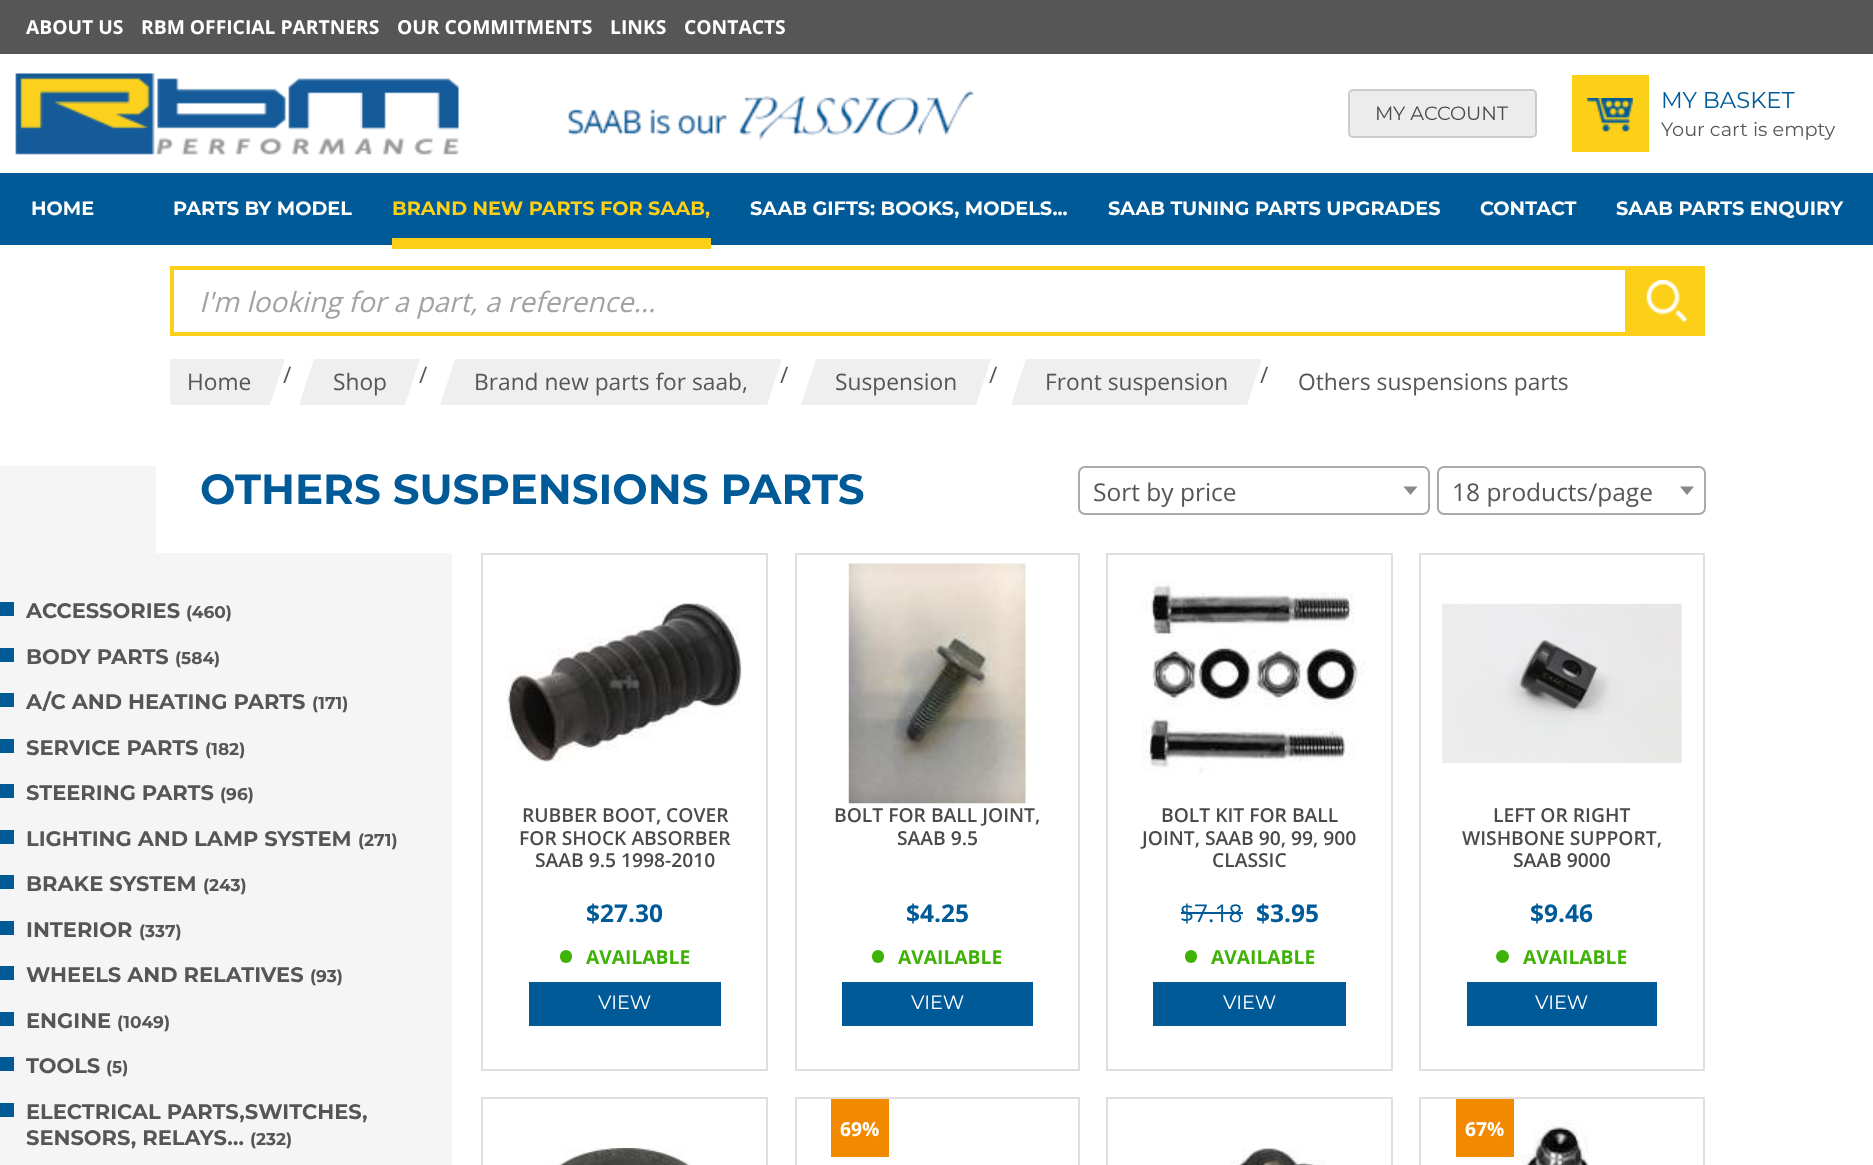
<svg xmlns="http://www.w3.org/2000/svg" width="1873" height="1165">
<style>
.a{font:bold 19.25px Open Sans;fill:#fff}
.b{font:19.25px Montserrat;fill:#4a4a4a}
.c{font:22.75px Montserrat;fill:#005a97}
.d{font:19.25px Montserrat;fill:#565656}
.e{font:bold 19.25px Montserrat;fill:#fff}
.f{font:bold 19.25px Montserrat;fill:#fcd018}
.g{font:italic 28px Open Sans;fill:#a4a3a3}
.h{font:22.75px Open Sans;fill:#565656}
.i{font:bold 42px Montserrat;fill:#005a97}
.j{font:24.5px Open Sans;fill:#565656}
.k{font:bold 21px Montserrat;fill:#565656}
.l{font:bold 17px Montserrat;fill:#565656}
.m{font:600 19.25px Open Sans;fill:#4a4a4a}
.n{font:bold 24.5px Open Sans;fill:#005a97}
.o{font:bold 19.25px Open Sans;fill:#3eb206}
.p{font:19.25px Montserrat;fill:#fff}
.q{font:24.5px Open Sans;fill:#005a97}
</style>
<rect width="100%" height="100%" fill="#565656"/>
<path fill="#fff" d="M0 54h1873v119H0z"/>
<image href="1.png" x="15" y="73" width="444" height="82"/>
<image href="2.png" x="568" y="90" width="406" height="51"/>
<rect fill="#ececec" stroke="#cbcbcb" stroke-width="2" x="1349" y="90" width="187" height="47" rx="4"/>
<path fill="#fcd018" d="M1572 75h77v77H1572z"/>
<image href="3.png" x="1587" y="98" width="46" height="34"/>
<path fill="#005a97" d="M0 173h1873v72H0z"/>
<path fill="#fff" d="M0 245h1873v920H0z"/>
<path fill="#fcd018" d="M392 238h319v11H392z"/>
<path fill="none" stroke="#fcd018" stroke-width="4" d="M172 268h1455v66H172z"/>
<path fill="#fcd018" d="M1629 266h76v70H1629z"/>
<image href="4.png" x="1646" y="280" width="41" height="42"/>
<path fill="#efefef" d="M170 359h16v45H170z"/>
<path fill="#f5f5f5" d="M0 466h156v87H0z"/>
<rect fill="none" stroke="#aaa" stroke-width="2" x="1079" y="467" width="350" height="47" rx="6"/>
<path fill="#888" d="M1403.5 486.5h14l-7 8.5z"/>
<rect fill="none" stroke="#aaa" stroke-width="2" x="1438" y="467" width="267" height="47" rx="6"/>
<path fill="#888" d="M1680 486.5h14l-7 8.5z"/>
<path fill="#f5f5f5" d="M0 553h452v612H0z"/>
<path fill="#005a97" d="M0 602h14v14H0z"/>
<path fill="#005a97" d="M0 648h14v14H0z"/>
<path fill="#005a97" d="M0 693h14v14H0z"/>
<path fill="#005a97" d="M0 739h14v14H0z"/>
<path fill="#005a97" d="M0 784h14v14H0z"/>
<path fill="#005a97" d="M0 830h14v14H0z"/>
<path fill="#005a97" d="M0 875h14v14H0z"/>
<path fill="#005a97" d="M0 921h14v14H0z"/>
<path fill="#005a97" d="M0 966h14v14H0z"/>
<path fill="#005a97" d="M0 1012h14v14H0z"/>
<path fill="#005a97" d="M0 1057h14v14H0z"/>
<path fill="#005a97" d="M0 1103h14v14H0z"/>
<path fill="none" stroke="#dfdfdf" stroke-width="2" d="M482 554h285v516H482z"/>
<image href="5.png" x="506" y="603" width="236" height="159"/>
<rect fill="#3eb206" x="560" y="950" width="12" height="13" rx="6"/>
<path fill="#005a97" d="M529 982h192v44H529z"/>
<path fill="none" stroke="#dfdfdf" stroke-width="2" d="M796 554h283v516H796z"/>
<image href="6.png" x="848" y="563" width="178" height="241"/>
<rect fill="#3eb206" x="872" y="950" width="12" height="13" rx="6"/>
<path fill="#005a97" d="M842 982h191v44H842z"/>
<path fill="none" stroke="#dfdfdf" stroke-width="2" d="M1107 554h285v516H1107z"/>
<image href="7.png" x="1142" y="581" width="223" height="192"/>
<path fill="#005a97" d="M1181 912h62v2H1181z"/>
<rect fill="#3eb206" x="1185" y="950" width="12" height="13" rx="6"/>
<path fill="#005a97" d="M1153 982h193v44H1153z"/>
<path fill="none" stroke="#dfdfdf" stroke-width="2" d="M1420 554h284v516H1420z"/>
<image href="8.png" x="1442" y="603" width="240" height="160"/>
<circle fill="#3eb206" cx="1502.5" cy="956.5" r="6.5"/>
<path fill="#005a97" d="M1467 982h190v44H1467z"/>
<path fill="none" stroke="#dfdfdf" stroke-width="2" d="M482 1098h285v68H482z"/>
<image href="9.png" x="551" y="1148" width="142" height="17"/>
<path fill="none" stroke="#dfdfdf" stroke-width="2" d="M796 1098h283v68H796z"/>
<path fill="#f28900" d="M831 1099h58v58H831z"/>
<path fill="none" stroke="#dfdfdf" stroke-width="2" d="M1107 1098h285v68H1107z"/>
<image href="10.png" x="1231" y="1148" width="94" height="17"/>
<path fill="none" stroke="#dfdfdf" stroke-width="2" d="M1420 1098h284v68H1420z"/>
<path fill="#f28900" d="M1456 1099h58v58H1456z"/>
<image href="11.png" x="1521" y="1120" width="68" height="45"/>
<text class="a" x="26" y="34">ABOUT US</text>
<text class="a" x="141" y="34">RBM OFFICIAL PARTNERS</text>
<text class="a" x="397" y="34">OUR COMMITMENTS</text>
<text class="a" x="610" y="34">LINKS</text>
<text class="a" x="684" y="34">CONTACTS</text>
<text class="b" x="1375" y="120">MY ACCOUNT</text>
<text class="c" x="1661" y="108">MY BASKET</text>
<text class="d" x="1661" y="136">Your cart is empty</text>
<text class="e" x="31" y="215">HOME</text>
<text class="e" x="173" y="215">PARTS BY MODEL</text>
<text class="f" x="392" y="215">BRAND NEW PARTS FOR SAAB,</text>
<text class="e" x="750" y="215">SAAB GIFTS: BOOKS, MODELS...</text>
<text class="e" x="1108" y="215">SAAB TUNING PARTS UPGRADES</text>
<text class="e" x="1480" y="215">CONTACT</text>
<text class="e" x="1616" y="215">SAAB PARTS ENQUIRY</text>
<text class="g" x="199" y="312">I'm looking for a part, a reference...</text>
<text class="h" x="283" y="383">/</text>
<path fill="#efefef" d="M186 359h99l-15 46h-99z"/>
<text class="h" x="187" y="390">Home</text>
<text class="h" x="419" y="383">/</text>
<path fill="#efefef" d="M314 359h106l-15 46h-106z"/>
<text class="h" x="333" y="390">Shop</text>
<text class="h" x="780" y="383">/</text>
<path fill="#efefef" d="M455 359h327l-15 46h-327z"/>
<text class="h" x="474" y="390">Brand new parts for saab,</text>
<text class="h" x="989" y="383">/</text>
<path fill="#efefef" d="M816 359h175l-15 46h-175z"/>
<text class="h" x="835" y="390">Suspension</text>
<text class="h" x="1260" y="383">/</text>
<path fill="#efefef" d="M1026 359h236l-15 46h-236z"/>
<text class="h" x="1045" y="390">Front suspension</text>
<text class="h" x="1298" y="390">Others suspensions parts</text>
<text class="i" x="200" y="504">OTHERS SUSPENSIONS PARTS</text>
<text class="j" x="1093" y="501">Sort by price</text>
<text class="j" x="1452" y="501">18 products/page</text>
<text class="k" x="26" y="618">ACCESSORIES</text>
<text class="l" x="186" y="618">(460)</text>
<text class="k" x="26" y="664">BODY PARTS</text>
<text class="l" x="175" y="664">(584)</text>
<text class="k" x="26" y="709">A/C AND HEATING PARTS</text>
<text class="l" x="312" y="709">(171)</text>
<text class="k" x="26" y="755">SERVICE PARTS</text>
<text class="l" x="205" y="755">(182)</text>
<text class="k" x="26" y="800">STEERING PARTS</text>
<text class="l" x="220" y="800">(96)</text>
<text class="k" x="26" y="846">LIGHTING AND LAMP SYSTEM</text>
<text class="l" x="358" y="846">(271)</text>
<text class="k" x="26" y="891">BRAKE SYSTEM</text>
<text class="l" x="203" y="891">(243)</text>
<text class="k" x="26" y="937">INTERIOR</text>
<text class="l" x="139" y="937">(337)</text>
<text class="k" x="26" y="982">WHEELS AND RELATIVES</text>
<text class="l" x="310" y="982">(93)</text>
<text class="k" x="26" y="1028">ENGINE</text>
<text class="l" x="117" y="1028">(1049)</text>
<text class="k" x="26" y="1073">TOOLS</text>
<text class="l" x="106" y="1073">(5)</text>
<text class="k" x="26" y="1119">ELECTRICAL PARTS,SWITCHES,</text>
<text class="k" x="26" y="1145">SENSORS, RELAYS…</text>
<text class="l" x="250" y="1145">(232)</text>
<text class="m" x="522" y="822">RUBBER BOOT, COVER</text>
<text class="m" x="519" y="845">FOR SHOCK ABSORBER</text>
<text class="m" x="535" y="867">SAAB 9.5 1998-2010</text>
<text class="n" x="586" y="922">$27.30</text>
<text class="o" x="586" y="964">AVAILABLE</text>
<text class="p" x="598" y="1009">VIEW</text>
<text class="m" x="834" y="822">BOLT FOR BALL JOINT,</text>
<text class="m" x="897" y="845">SAAB 9.5</text>
<text class="n" x="906" y="922">$4.25</text>
<text class="o" x="898" y="964">AVAILABLE</text>
<text class="p" x="911" y="1009">VIEW</text>
<text class="m" x="1161" y="822">BOLT KIT FOR BALL</text>
<text class="m" x="1142" y="845">JOINT, SAAB 90, 99, 900</text>
<text class="m" x="1212" y="867">CLASSIC</text>
<text class="q" x="1180" y="922">$7.18</text>
<text class="n" x="1256" y="922">$3.95</text>
<text class="o" x="1211" y="964">AVAILABLE</text>
<text class="p" x="1223" y="1009">VIEW</text>
<text class="m" x="1493" y="822">LEFT OR RIGHT</text>
<text class="m" x="1462" y="845">WISHBONE SUPPORT,</text>
<text class="m" x="1513" y="867">SAAB 9000</text>
<text class="n" x="1530" y="922">$9.46</text>
<text class="o" x="1523" y="964">AVAILABLE</text>
<text class="p" x="1535" y="1009">VIEW</text>
<text class="a" x="840" y="1136">69%</text>
<text class="a" x="1465" y="1136">67%</text>
</svg>
